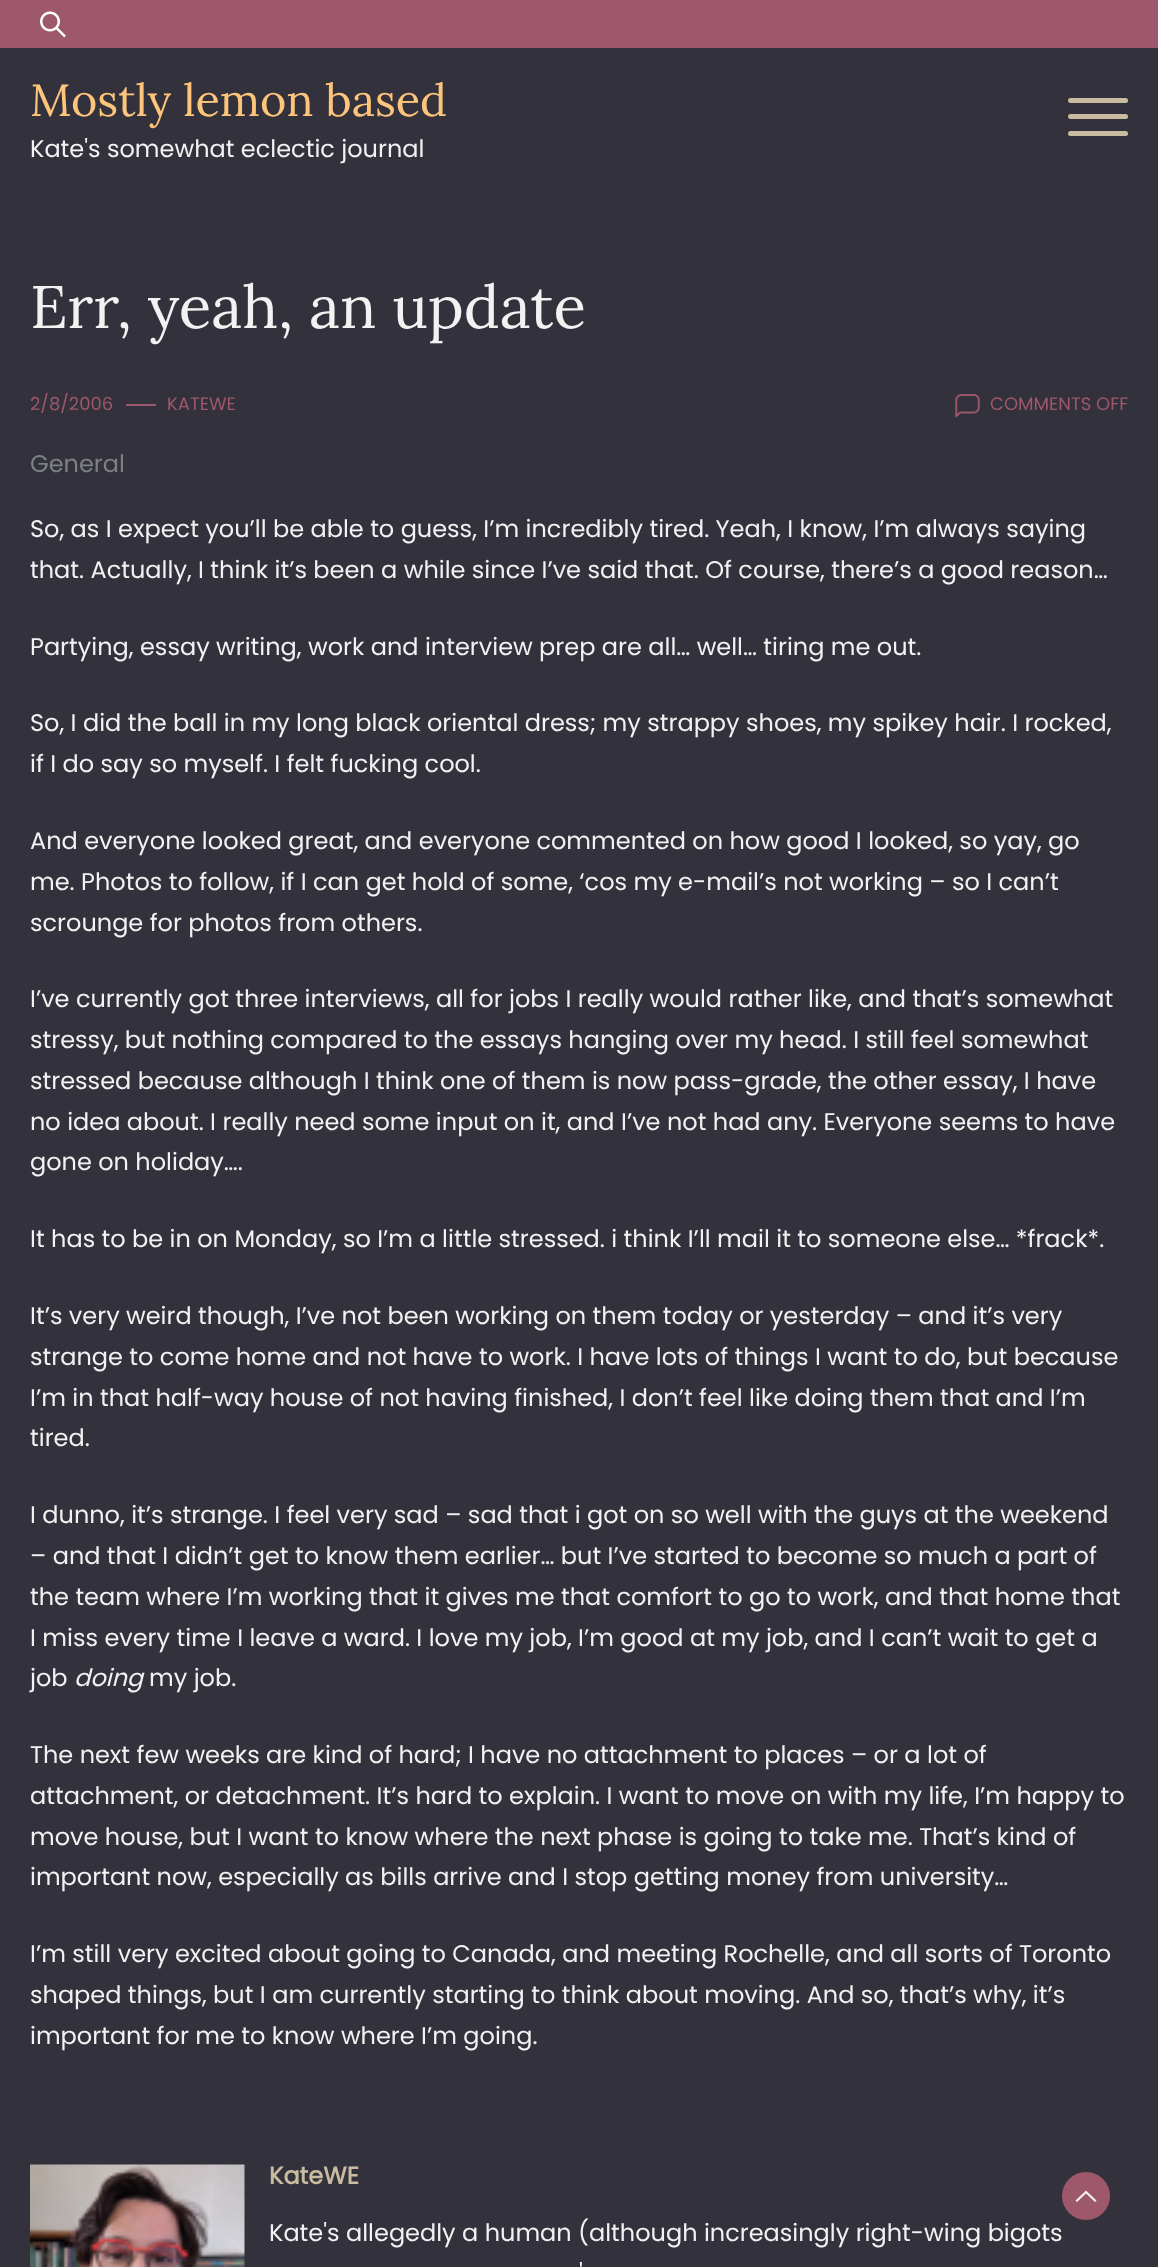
<svg xmlns="http://www.w3.org/2000/svg" width="1158" height="2267">
<style>
.a{font:45px Lora;fill:#fdc57b}
.b{font:24px Poppins;fill:#f2f2f2}
.c{font:60px Lora;fill:#f2f2f2}
.d{font:18px Poppins;fill:#9e586b}
.e{font:24px Poppins;fill:#7c8182}
.f{font:italic 24px Poppins;fill:#f2f2f2}
.g{font:bold 24px Poppins;fill:#cabca0}
</style>
<rect width="100%" height="100%" fill="#33313b"/>
<path fill="#9e586b" d="M0 0h1158v48H0z"/>
<image href="1.png" x="40" y="11" width="26" height="27"/>
<rect fill="#cabca0" x="1068" y="98" width="60" height="5" rx="2.5"/>
<rect fill="#cabca0" x="1068" y="114" width="60" height="5" rx="2.5"/>
<rect fill="#cabca0" x="1068" y="131" width="60" height="5" rx="2.5"/>
<path fill="#9e586b" d="M126 404h30v2H126z"/>
<image href="2.png" x="955" y="394" width="25" height="24"/>
<image href="3.png" x="30" y="2164" width="215" height="103"/>
<circle fill="#9e586b" cx="1086" cy="2196" r="24"/>
<path fill="#f2f2f2" d="M1096.5 2200.5l-1.5 1.5l-9-8.5l-9 8.5l-1.5-1.5l10.5-10l10.5 10"/>
<text class="a" x="30" y="116">Mostly lemon based</text>
<text class="b" x="30" y="157">Kate's somewhat eclectic journal</text>
<text class="c" x="30" y="328">Err, yeah, an update</text>
<text class="d" x="30" y="410">2/8/2006</text>
<text class="d" x="167" y="410">KATEWE</text>
<text class="d" x="990" y="410">COMMENTS OFF</text>
<text class="e" x="30" y="472">General</text>
<text class="b" x="30" y="537">So, as I expect you’ll be able to guess, I’m incredibly tired. Yeah, I know, I’m always saying</text>
<text class="b" x="30" y="578">that. Actually, I think it’s been a while since I’ve said that. Of course, there’s a good reason…</text>
<text class="b" x="30" y="655">Partying, essay writing, work and interview prep are all… well… tiring me out.</text>
<text class="b" x="30" y="731">So, I did the ball in my long black oriental dress; my strappy shoes, my spikey hair. I rocked,</text>
<text class="b" x="30" y="772">if I do say so myself. I felt fucking cool.</text>
<text class="b" x="30" y="849">And everyone looked great, and everyone commented on how good I looked, so yay, go</text>
<text class="b" x="30" y="890">me. Photos to follow, if I can get hold of some, ‘cos my e-mail’s not working – so I can’t</text>
<text class="b" x="30" y="931">scrounge for photos from others.</text>
<text class="b" x="30" y="1007">I’ve currently got three interviews, all for jobs I really would rather like, and that’s somewhat</text>
<text class="b" x="30" y="1048">stressy, but nothing compared to the essays hanging over my head. I still feel somewhat</text>
<text class="b" x="30" y="1089">stressed because although I think one of them is now pass-grade, the other essay, I have</text>
<text class="b" x="30" y="1130">no idea about. I really need some input on it, and I’ve not had any. Everyone seems to have</text>
<text class="b" x="30" y="1170">gone on holiday….</text>
<text class="b" x="30" y="1247">It has to be in on Monday, so I’m a little stressed. i think I’ll mail it to someone else… *frack*.</text>
<text class="b" x="30" y="1324">It’s very weird though, I’ve not been working on them today or yesterday – and it’s very</text>
<text class="b" x="30" y="1365">strange to come home and not have to work. I have lots of things I want to do, but because</text>
<text class="b" x="30" y="1406">I’m in that half-way house of not having finished, I don’t feel like doing them that and I’m</text>
<text class="b" x="30" y="1446">tired.</text>
<text class="b" x="30" y="1523">I dunno, it’s strange. I feel very sad – sad that i got on so well with the guys at the weekend</text>
<text class="b" x="30" y="1564">– and that I didn’t get to know them earlier… but I’ve started to become so much a part of</text>
<text class="b" x="30" y="1605">the team where I’m working that it gives me that comfort to go to work, and that home that</text>
<text class="b" x="30" y="1646">I miss every time I leave a ward. I love my job, I’m good at my job, and I can’t wait to get a</text>
<text class="b" x="30" y="1686">job</text>
<text class="f" x="74" y="1686">doing</text>
<text class="b" x="149" y="1686">my job.</text>
<text class="b" x="30" y="1763">The next few weeks are kind of hard; I have no attachment to places – or a lot of</text>
<text class="b" x="30" y="1804">attachment, or detachment. It’s hard to explain. I want to move on with my life, I’m happy to</text>
<text class="b" x="30" y="1845">move house, but I want to know where the next phase is going to take me. That’s kind of</text>
<text class="b" x="30" y="1885">important now, especially as bills arrive and I stop getting money from university…</text>
<text class="b" x="30" y="1962">I’m still very excited about going to Canada, and meeting Rochelle, and all sorts of Toronto</text>
<text class="b" x="30" y="2003">shaped things, but I am currently starting to think about moving. And so, that’s why, it’s</text>
<text class="b" x="30" y="2044">important for me to know where I’m going.</text>
<text class="g" x="269" y="2184">KateWE</text>
<text class="b" x="269" y="2241">Kate's allegedly a human (although increasingly right-wing bigots</text>
<text class="b" x="579" y="2281">'</text>
</svg>
